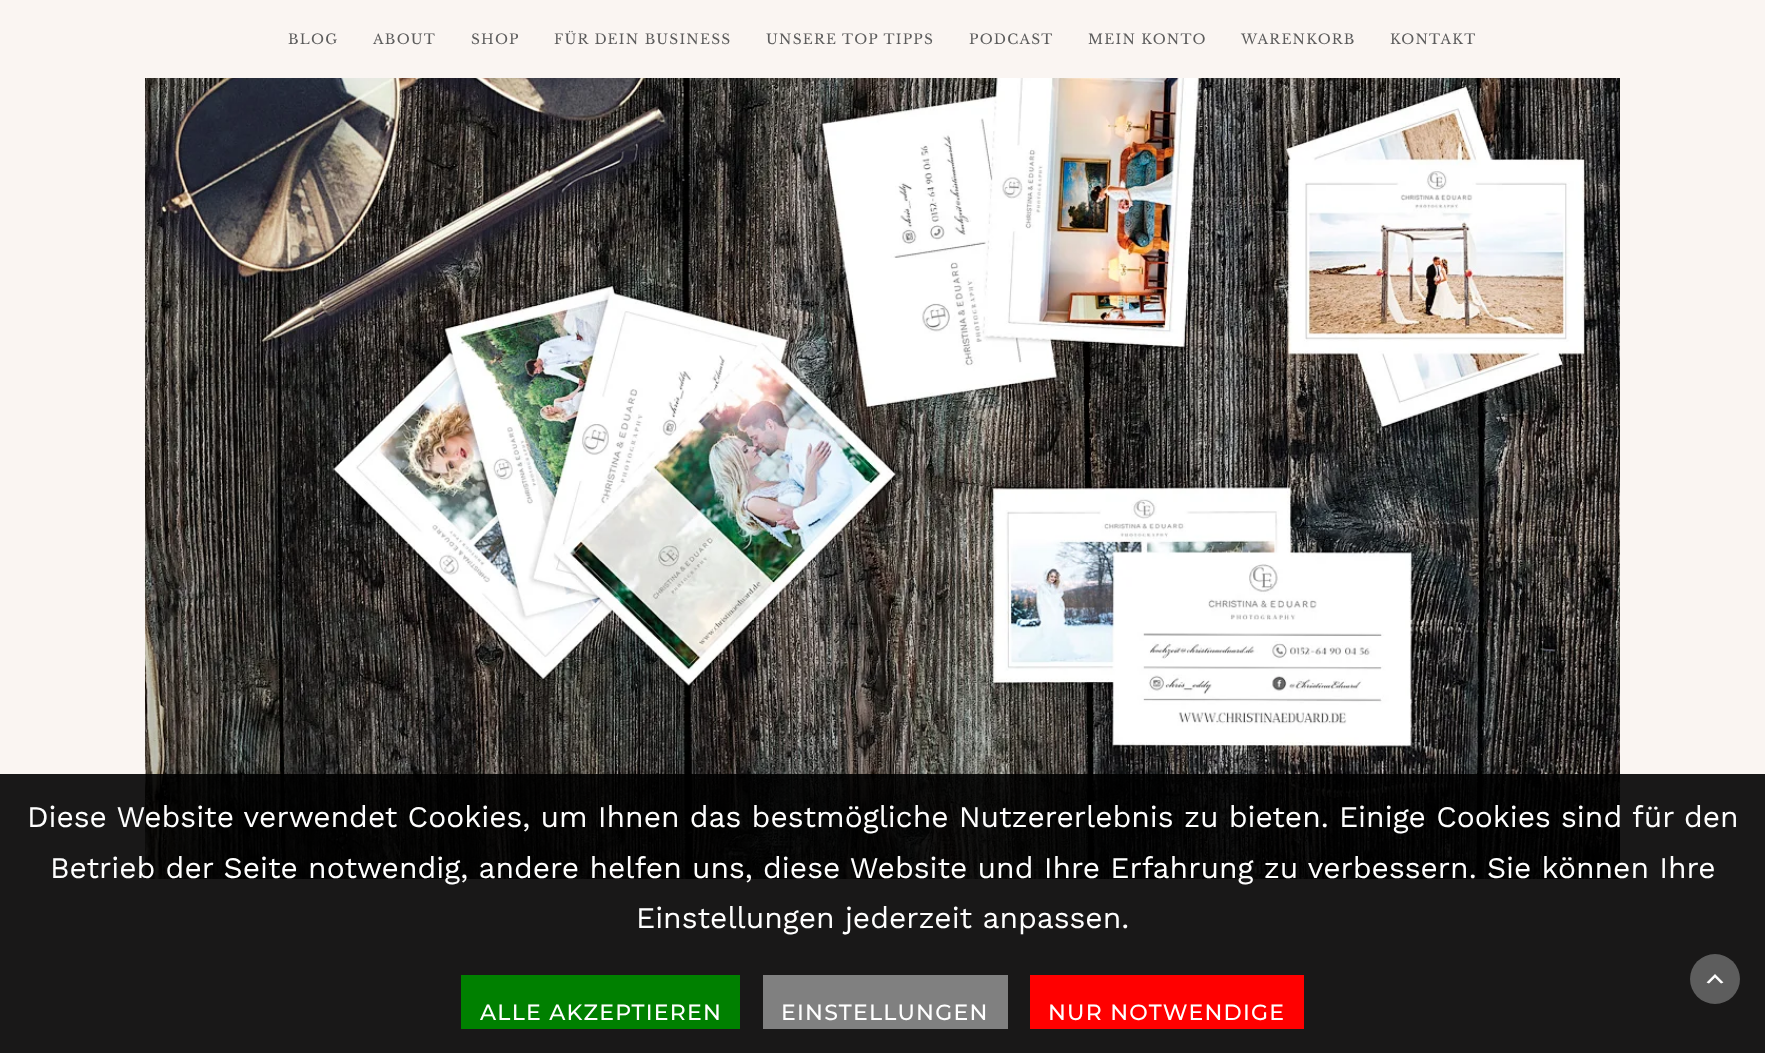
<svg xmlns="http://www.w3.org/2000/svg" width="1765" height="1053">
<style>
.a{font:13.75px Libre Baskerville;letter-spacing:1.25px;fill:#5d5d5d}
.b{font:30px Work Sans;fill:#fff}
.c{font:500 22px Montserrat;letter-spacing:1.25px;fill:#fff}
</style>
<rect width="100%" height="100%" fill="#faf5f2"/>
<image href="1.png" x="145" y="78" width="1475" height="801"/>
<path fill="#000000e6" d="M0 774h1765v279H0z"/>
<circle fill="#5d5d5d" cx="1715" cy="979" r="25"/>
<path fill="#fff" d="M1721 983.5l-6-6l-6 6l-2.5-1l8.5-8.5l8.5 8.5z"/>
<path fill="#008000" d="M461 975h279v54H461z"/>
<path fill="#808080" d="M763 975h245v54H763z"/>
<path fill="#f00" d="M1030 975h274v54H1030z"/>
<text class="a" x="288" y="44">BLOG</text>
<text class="a" x="373" y="44">ABOUT</text>
<text class="a" x="471" y="44">SHOP</text>
<text class="a" x="554" y="44">FÜR DEIN BUSINESS</text>
<text class="a" x="766" y="44">UNSERE TOP TIPPS</text>
<text class="a" x="969" y="44">PODCAST</text>
<text class="a" x="1088" y="44">MEIN KONTO</text>
<text class="a" x="1241" y="44">WARENKORB</text>
<text class="a" x="1390" y="44">KONTAKT</text>
<text class="b" x="27" y="827">Diese Website verwendet Cookies, um Ihnen das bestmögliche Nutzererlebnis zu bieten. Einige Cookies sind für den</text>
<text class="b" x="50" y="878">Betrieb der Seite notwendig, andere helfen uns, diese Website und Ihre Erfahrung zu verbessern. Sie können Ihre</text>
<text class="b" x="636" y="928">Einstellungen jederzeit anpassen.</text>
<text class="c" x="480" y="1020">ALLE AKZEPTIEREN</text>
<text class="c" x="781" y="1020">EINSTELLUNGEN</text>
<text class="c" x="1048" y="1020">NUR NOTWENDIGE</text>
</svg>
